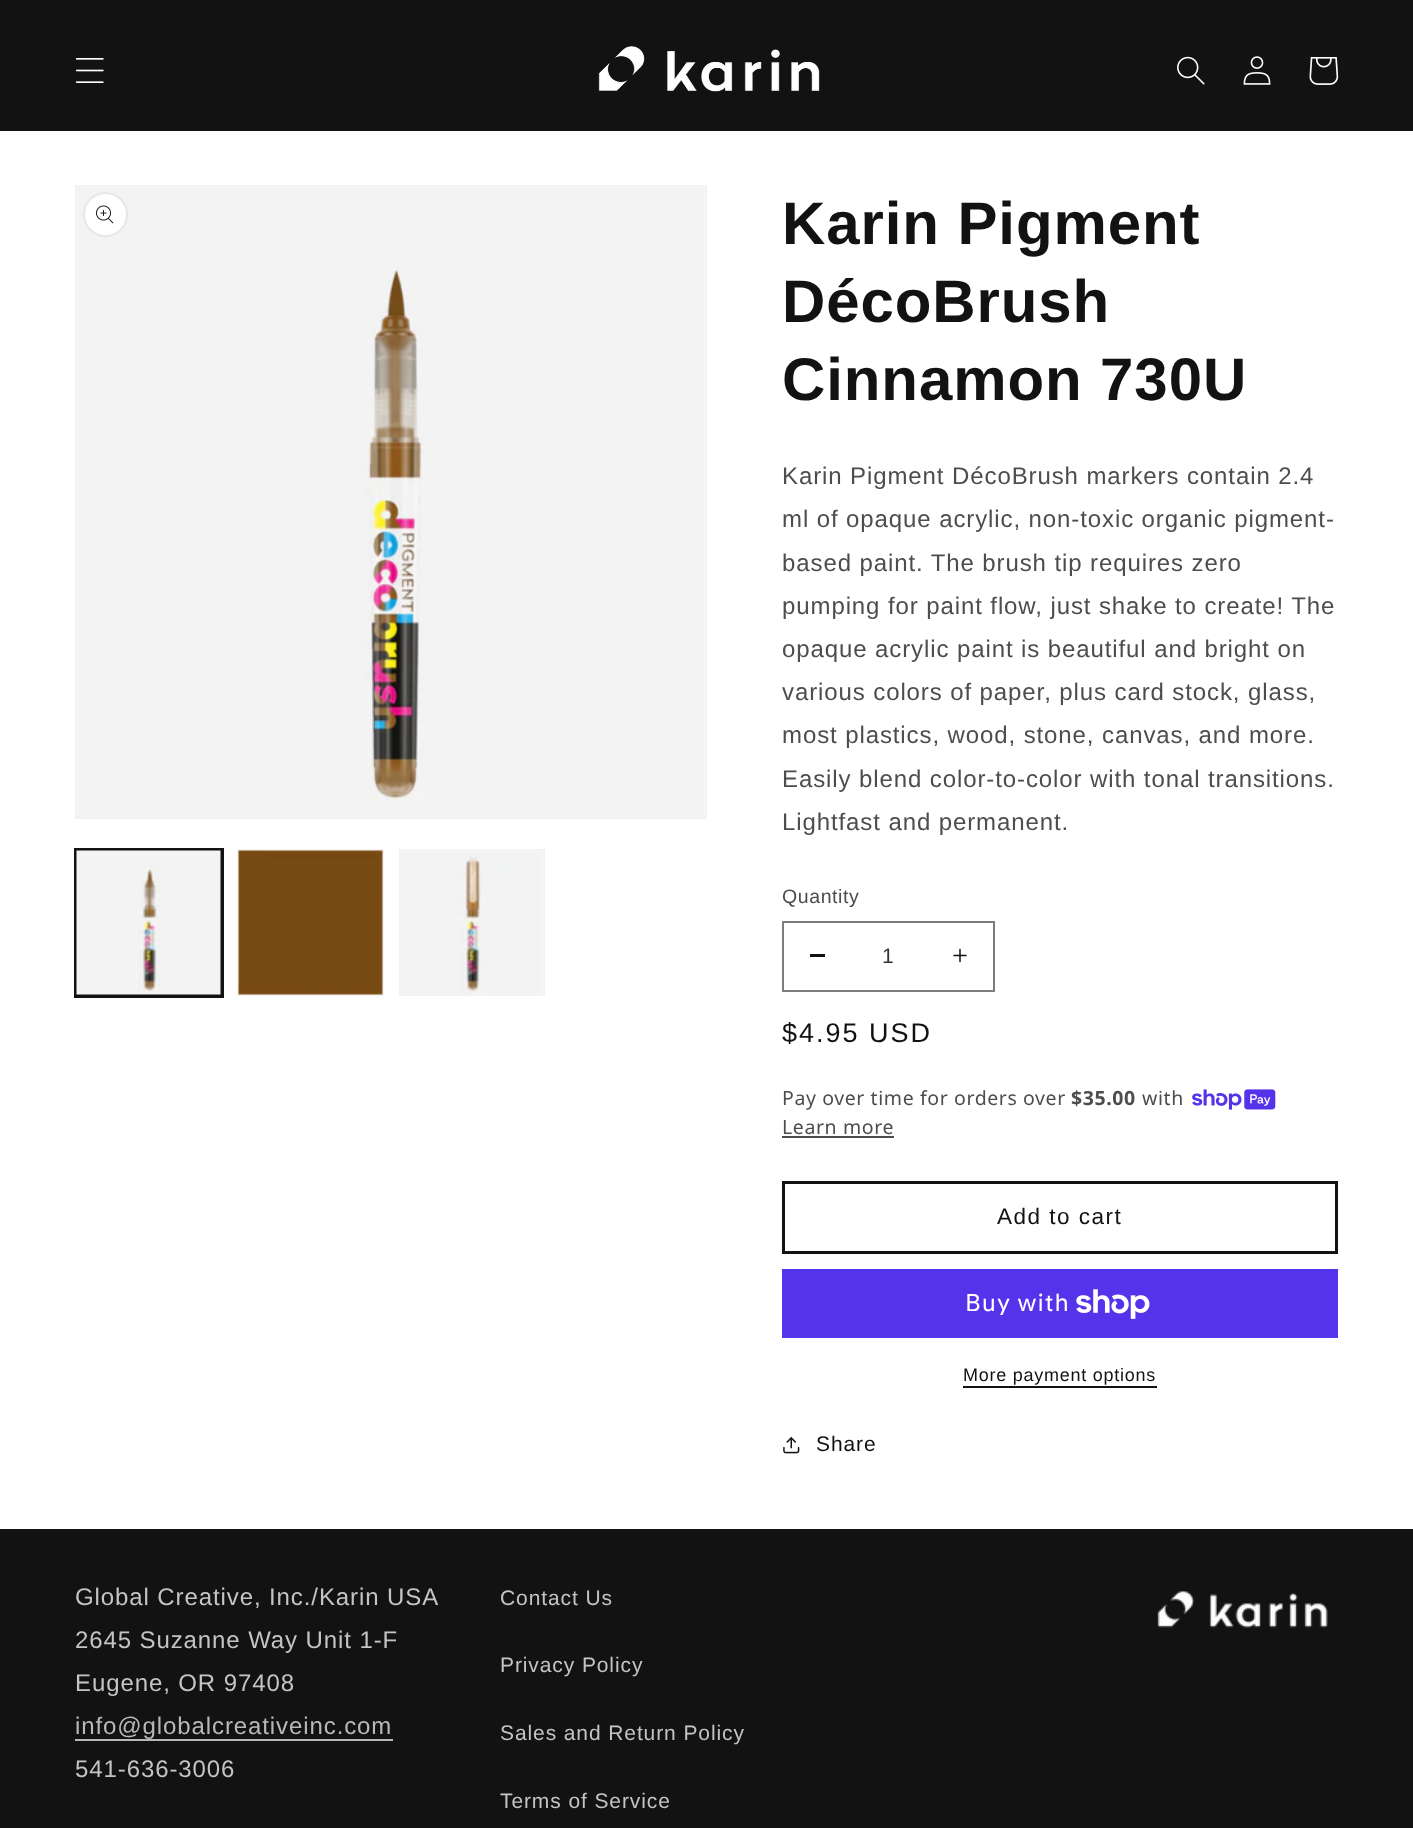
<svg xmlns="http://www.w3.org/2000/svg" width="1413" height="1828">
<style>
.a{font:bold 60px Liberation Sans;letter-spacing:0.9px;fill:#121212}
.b{font:24px Liberation Sans;letter-spacing:0.9px;fill:#4d4d4d}
.c{font:19.5px Liberation Sans;letter-spacing:0.6px;fill:#4d4d4d}
.d{font:21px Liberation Sans;fill:#363636}
.e{font:27px Liberation Sans;letter-spacing:2px;fill:#121212}
.f{font:19.5px Noto Sans;letter-spacing:0.6px;fill:#4d4d4d}
.g{font:bold 19.5px Noto Sans;letter-spacing:0.6px;fill:#4d4d4d}
.h{font:22.5px Liberation Sans;letter-spacing:1.5px;fill:#121212}
.i{font:24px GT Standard;letter-spacing:0.9px;fill:#fff}
.j{font:18px Liberation Sans;letter-spacing:0.75px;fill:#121212}
.k{font:21px Liberation Sans;letter-spacing:0.9px;fill:#121212}
.l{font:24px Liberation Sans;letter-spacing:0.9px;fill:#c4c4c4}
.m{font:24px Liberation Sans;letter-spacing:0.9px;fill:#b8b8b8}
.n{font:21px Liberation Sans;letter-spacing:0.9px;fill:#c4c4c4}
</style>
<rect width="100%" height="100%" fill="#fff"/>
<path fill="#121212" d="M0 0h1413v131H0z"/>
<image href="1.png" x="75" y="58" width="29" height="25"/>
<image href="2.png" x="598" y="46" width="222" height="46"/>
<image href="3.png" x="1177" y="56" width="28" height="29"/>
<image href="4.png" x="1243" y="56" width="28" height="29"/>
<image href="5.png" x="1309" y="57" width="30" height="28"/>
<path fill="none" stroke="#f3f3f3" stroke-width="2" d="M76 186h630v632H76z"/>
<image href="6.png" x="77" y="187" width="628" height="630"/>
<circle fill="#fff" cx="105.5" cy="214.5" r="22.5"/>
<circle fill="none" stroke="#1212121a" stroke-width="2" cx="105.5" cy="214.5" r="21.5"/>
<image href="7.png" x="96" y="205" width="18" height="19"/>
<path fill="none" stroke="#121212" stroke-width="2" d="M75 849h148v148H75z"/>
<path fill="none" stroke="#121212" stroke-width="2" d="M76 850h145v145H76z"/>
<image href="8.png" x="76" y="850" width="145" height="145"/>
<path fill="none" stroke="#f3f3f3" stroke-width="2" d="M238 850h145v145H238z"/>
<image href="9.png" x="238" y="850" width="145" height="145"/>
<path fill="none" stroke="#f3f3f3" stroke-width="2" d="M400 850h144v145H400z"/>
<image href="10.png" x="401" y="851" width="142" height="143"/>
<path fill="#121212" d="M810 954h15v3H810z"/>
<image href="11.png" x="953" y="948" width="14" height="15"/>
<path fill="none" stroke="#7d7d7d" stroke-width="2" d="M783 922h211v69H783z"/>
<image href="12.png" x="1192" y="1089" width="84" height="21"/>
<path fill="#4d4d4d" d="M782 1136h112v2H782z"/>
<path fill="none" stroke="#121212" stroke-width="3" d="M783.5 1182.5h553v70H783.5z"/>
<path fill="#5433eb" d="M782 1269h556v69H782z"/>
<image href="13.png" x="1076" y="1289" width="74" height="30"/>
<path fill="#121212" d="M963 1386h194v2H963z"/>
<image href="14.png" x="783" y="1437" width="17" height="17"/>
<path fill="#121212" d="M0 1529h1413v299H0z"/>
<path fill="#b8b8b8" d="M75 1739h318v2H75z"/>
<image href="15.png" x="1157" y="1590" width="171" height="38"/>
<text class="a" x="782" y="244">Karin Pigment</text>
<text class="a" x="782" y="322">DécoBrush</text>
<text class="a" x="782" y="400">Cinnamon 730U</text>
<text class="b" x="782" y="484">Karin Pigment DécoBrush markers contain 2.4</text>
<text class="b" x="782" y="527">ml of opaque acrylic, non-toxic organic pigment-</text>
<text class="b" x="782" y="571">based paint. The brush tip requires zero</text>
<text class="b" x="782" y="614">pumping for paint flow, just shake to create! The</text>
<text class="b" x="782" y="657">opaque acrylic paint is beautiful and bright on</text>
<text class="b" x="782" y="700">various colors of paper, plus card stock, glass,</text>
<text class="b" x="782" y="743">most plastics, wood, stone, canvas, and more.</text>
<text class="b" x="782" y="787">Easily blend color-to-color with tonal transitions.</text>
<text class="b" x="782" y="830">Lightfast and permanent.</text>
<text class="c" x="782" y="903">Quantity</text>
<text class="d" x="882" y="963">1</text>
<text class="e" x="782" y="1042">$4.95 USD</text>
<text class="f" x="782" y="1105">Pay over time for orders over</text>
<text class="g" x="1071" y="1105">$35.00</text>
<text class="f" x="1142" y="1105">with</text>
<text class="f" x="782" y="1134">Learn more</text>
<text class="h" x="997" y="1224">Add to cart</text>
<text class="i" x="965" y="1311">Buy with</text>
<text class="j" x="963" y="1381">More payment options</text>
<text class="k" x="816" y="1451">Share</text>
<text class="l" x="75" y="1605">Global Creative, Inc./Karin USA</text>
<text class="l" x="75" y="1648">2645 Suzanne Way Unit 1-F</text>
<text class="l" x="75" y="1691">Eugene, OR 97408</text>
<text class="m" x="75" y="1734">info@globalcreativeinc.com</text>
<text class="l" x="75" y="1777">541-636-3006</text>
<text class="n" x="500" y="1605">Contact Us</text>
<text class="n" x="500" y="1672">Privacy Policy</text>
<text class="n" x="500" y="1740">Sales and Return Policy</text>
<text class="n" x="500" y="1808">Terms of Service</text>
</svg>
